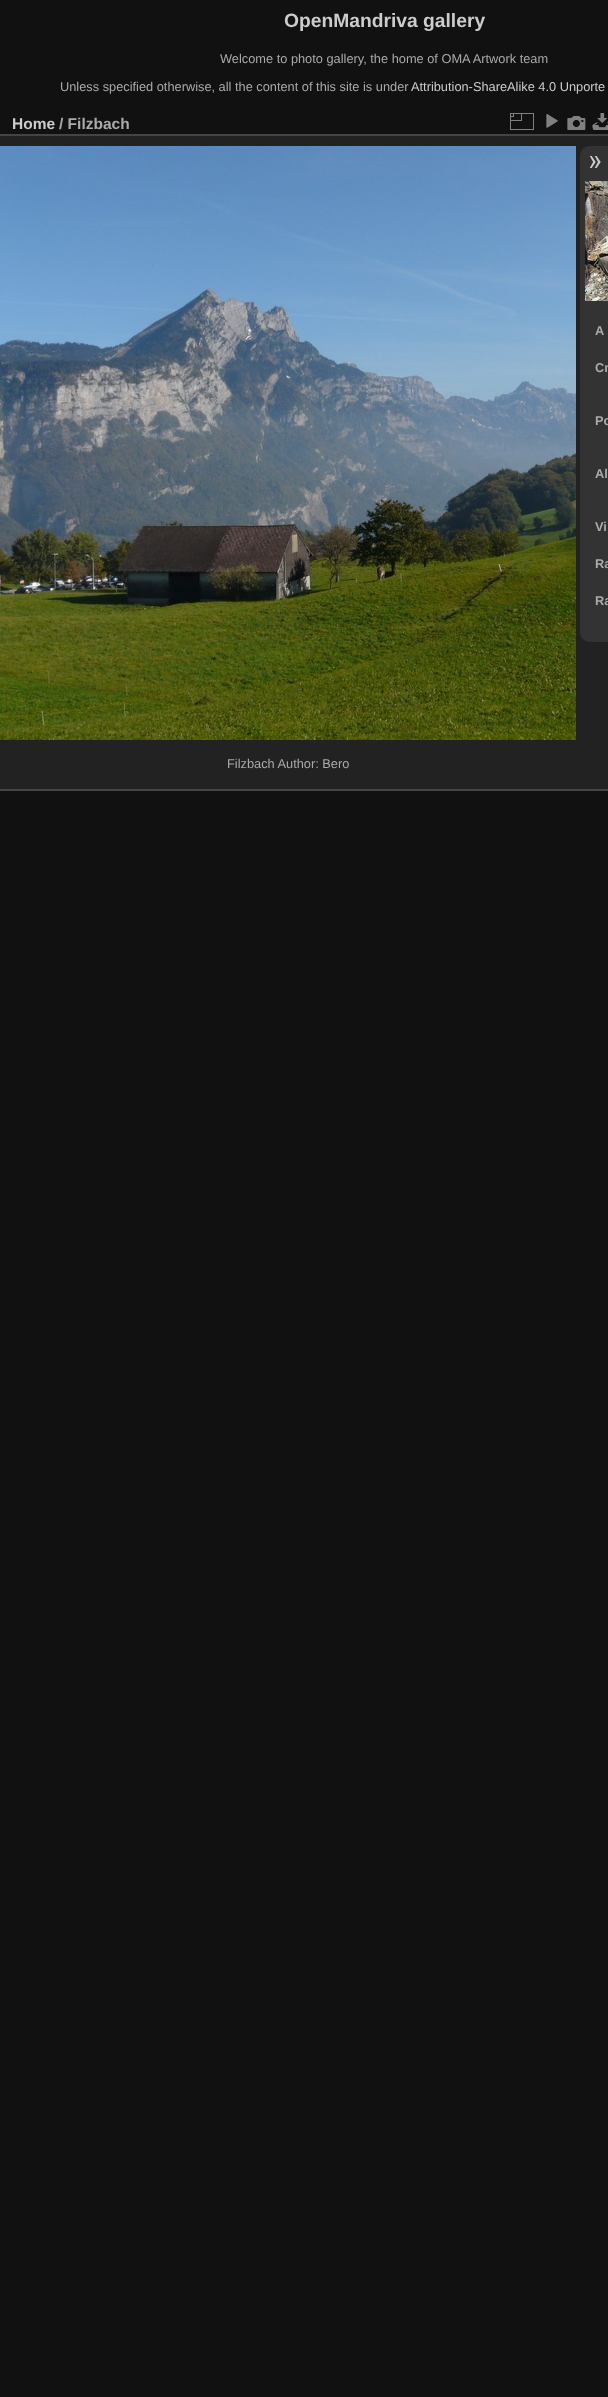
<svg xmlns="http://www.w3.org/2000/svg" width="608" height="2397">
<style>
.a{font:bold 19.25px Liberation Sans;fill:#ccc}
.b{font:12.8px Liberation Sans;fill:#aaa}
.c{font:12.8px Liberation Sans;fill:#ccc}
.d{font:bold 15.5px Liberation Sans;fill:#ccc}
.e{font:bold 15.5px Liberation Sans;fill:#aaa}
.f{font:bold 12.8px Liberation Sans;fill:#aaa}
</style>
<rect width="100%" height="100%" fill="#111"/>
<path fill="#222" d="M0 136h608v653H0z"/>
<path fill="#444" d="M0 789h608v2H0z"/>
<path fill="#444" d="M0 134h608v2H0z"/>
<image href="1.png" x="510" y="113" width="24" height="17"/>
<image href="2.png" x="546" y="114" width="12" height="14"/>
<image href="3.png" x="567" y="116" width="19" height="14"/>
<image href="4.png" x="592" y="113" width="16" height="17"/>
<path fill="#333" d="M590 146h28v496h-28c-5.5 0-10-4.5-10-10v-476c0-5.5 4.5-10 10-10z"/>
<image href="5.png" x="589" y="156" width="12" height="12"/>
<image href="6.png" x="585" y="181" width="23" height="120"/>
<image href="7.png" x="0" y="146" width="576" height="594"/>
<text class="a" x="284" y="27">OpenMandriva gallery</text>
<text class="b" x="220" y="63">Welcome to photo gallery, the home of OMA Artwork team</text>
<text class="b" x="60" y="91">Unless specified otherwise, all the content of this site is under</text>
<text class="c" x="411" y="91">Attribution-ShareAlike 4.0 Unporte</text>
<text class="d" x="12" y="129">Home</text>
<text class="e" x="59" y="129">/ Filzbach</text>
<text class="f" x="595" y="335">A</text>
<text class="f" x="595" y="372">Cr</text>
<text class="f" x="595" y="425">Po</text>
<text class="f" x="595" y="478">Al</text>
<text class="f" x="595" y="531">Vi</text>
<text class="f" x="595" y="568">Ra</text>
<text class="f" x="595" y="605">Ra</text>
<text class="b" x="227" y="768">Filzbach Author: Bero</text>
</svg>
